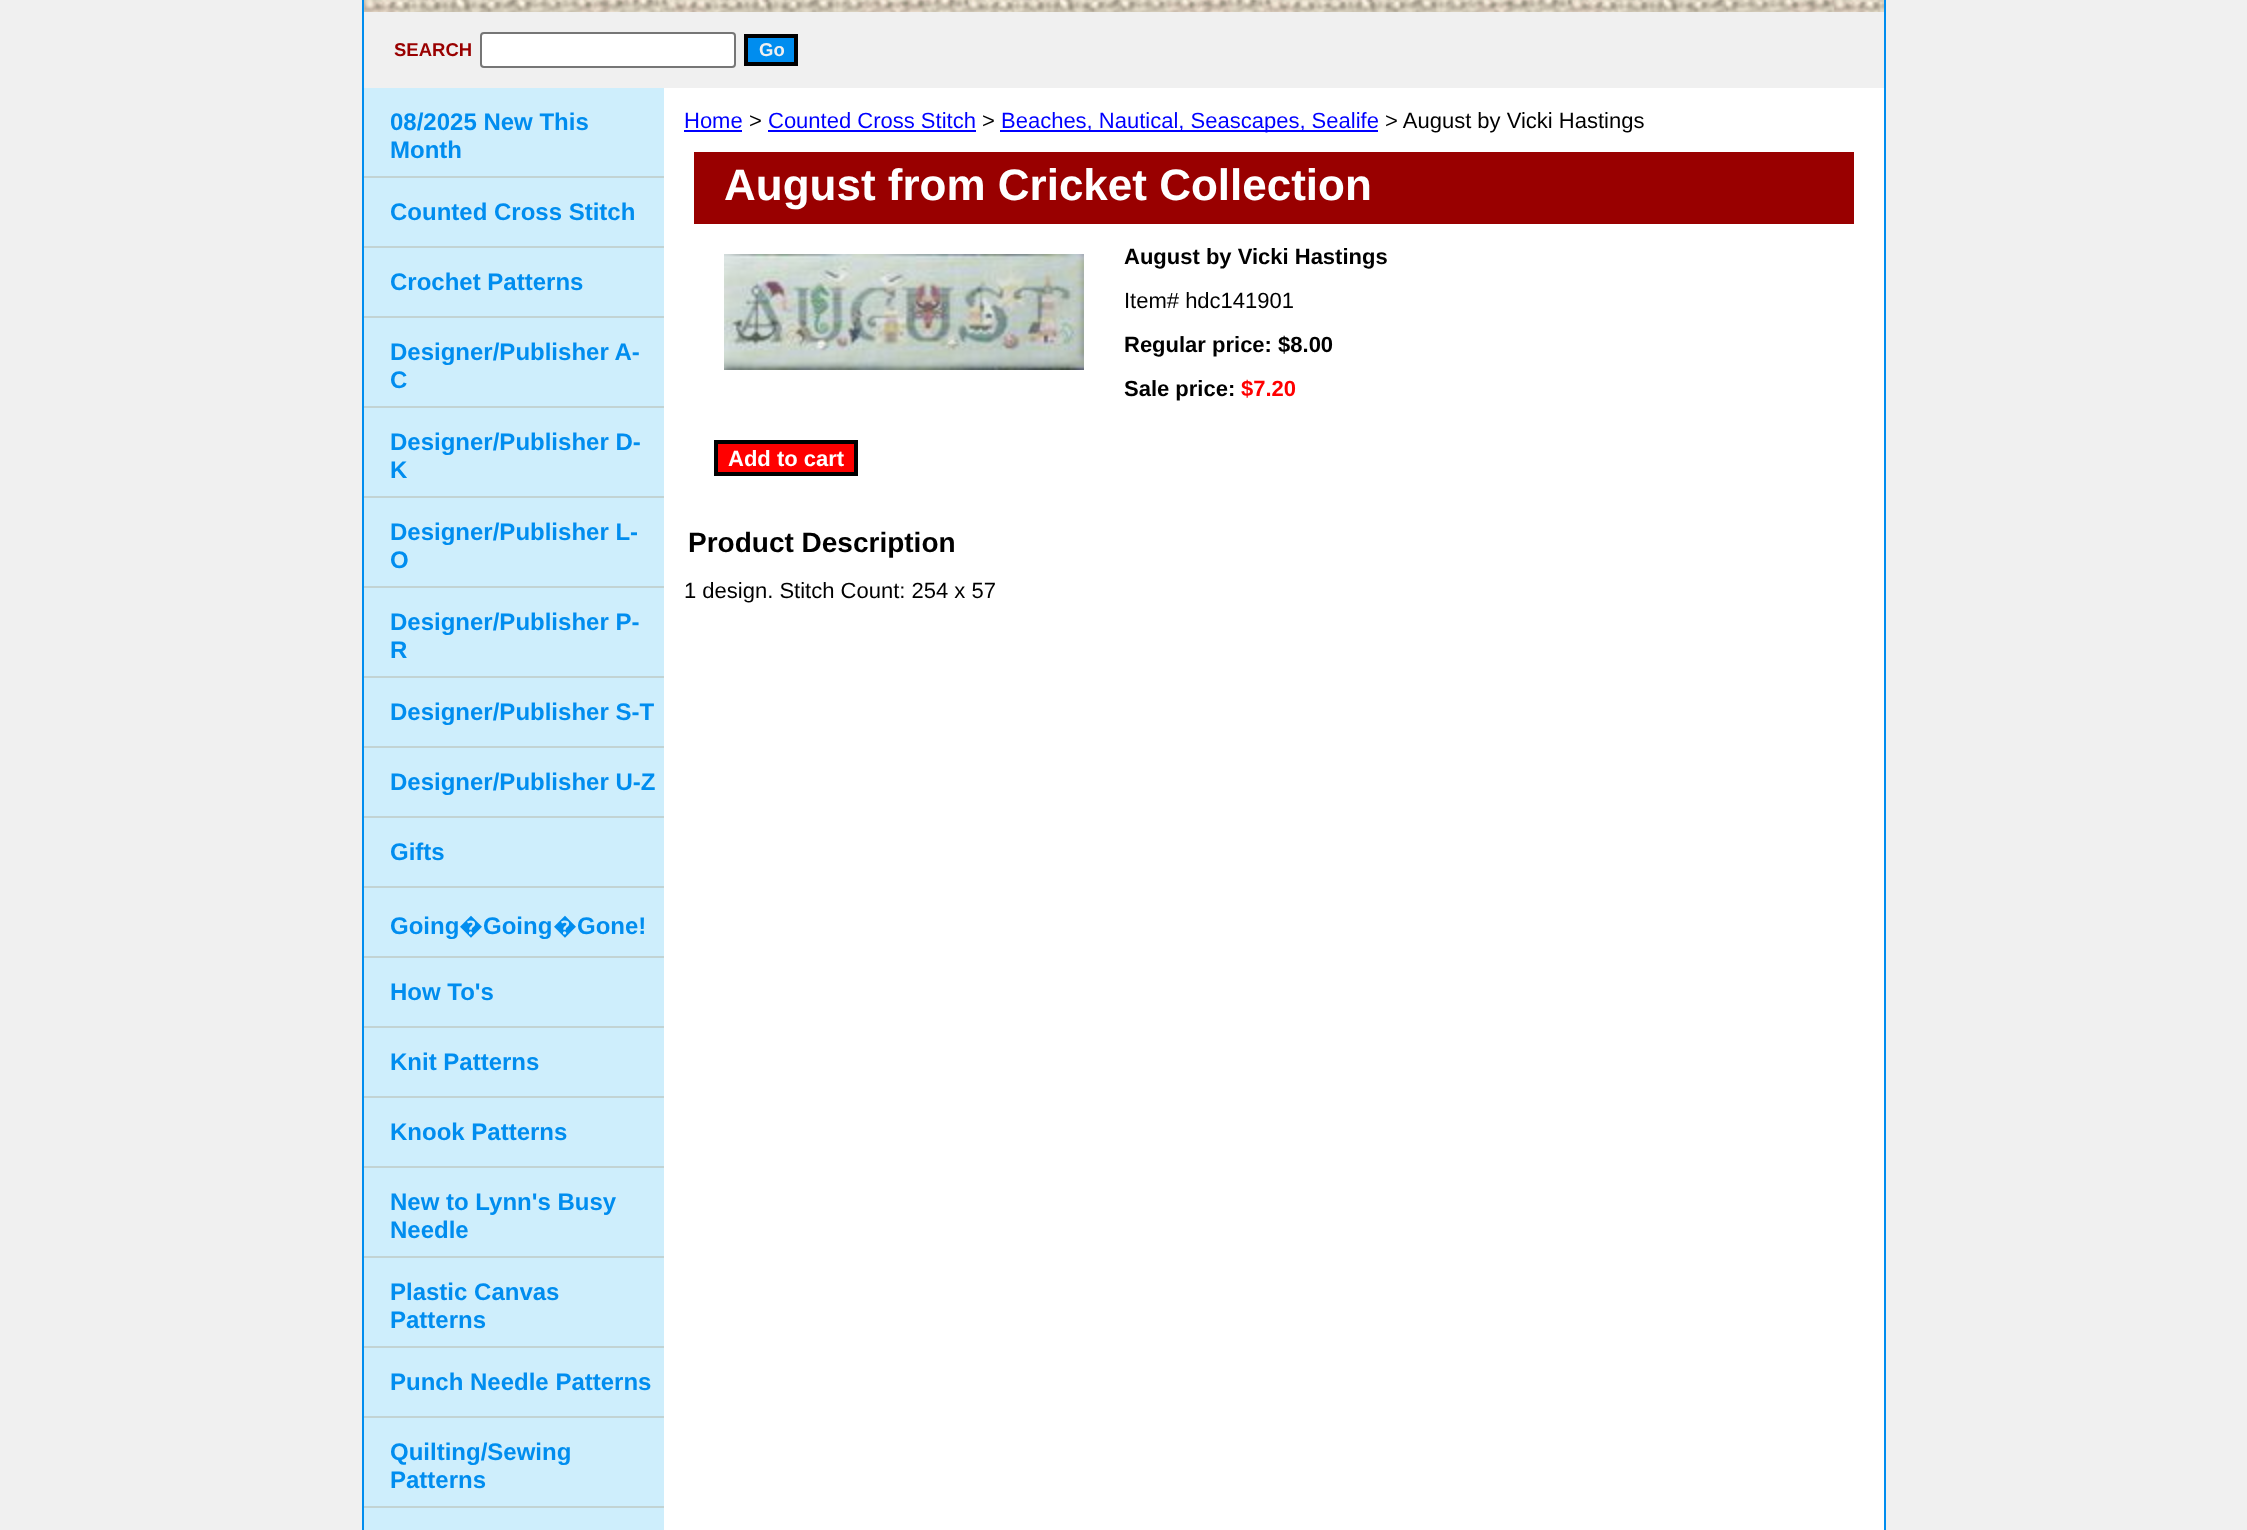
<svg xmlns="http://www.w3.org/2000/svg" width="2247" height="1530">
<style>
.a{font:bold 18.5px Liberation Sans;fill:#900}
.b{font:bold 18.5px Liberation Sans;fill:#f0f0f0}
.c{font:bold 24px Liberation Sans;fill:#008def}
.d{font:bold 24px Noto Sans;fill:#008def}
.e{font:22px Liberation Sans;fill:#00f}
.f{font:22px Liberation Sans;fill:#000}
.g{font:bold 44px Liberation Sans;fill:#fff}
.h{font:bold 22px Liberation Sans;fill:#000}
.i{font:bold 22px Liberation Sans;fill:#f00}
.j{font:bold 22px Liberation Sans;fill:#fff}
.k{font:bold 28px Liberation Sans;fill:#000}
</style>
<rect width="100%" height="100%" fill="#f0f0f0"/>
<path fill="#fff" d="M664 88h1220v1442H664z"/>
<path fill="none" stroke="#008def" stroke-width="2" d="M363 -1h1522v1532H363z"/>
<image href="1.png" x="364" y="0" width="1520" height="12"/>
<rect fill="#fff" stroke="#767676" stroke-width="2" x="481" y="33" width="254" height="34" rx="3"/>
<path fill="#008def" stroke="#000" stroke-width="4" d="M746 36h50v28H746z"/>
<path fill="#ceeefc" d="M364 88h300v1442H364z"/>
<path fill="#c2d3d3" d="M364 176h300v2H364z"/>
<path fill="#c2d3d3" d="M364 246h300v2H364z"/>
<path fill="#c2d3d3" d="M364 316h300v2H364z"/>
<path fill="#c2d3d3" d="M364 406h300v2H364z"/>
<path fill="#c2d3d3" d="M364 496h300v2H364z"/>
<path fill="#c2d3d3" d="M364 586h300v2H364z"/>
<path fill="#c2d3d3" d="M364 676h300v2H364z"/>
<path fill="#c2d3d3" d="M364 746h300v2H364z"/>
<path fill="#c2d3d3" d="M364 816h300v2H364z"/>
<path fill="#c2d3d3" d="M364 886h300v2H364z"/>
<path fill="#c2d3d3" d="M364 956h300v2H364z"/>
<path fill="#c2d3d3" d="M364 1026h300v2H364z"/>
<path fill="#c2d3d3" d="M364 1096h300v2H364z"/>
<path fill="#c2d3d3" d="M364 1166h300v2H364z"/>
<path fill="#c2d3d3" d="M364 1256h300v2H364z"/>
<path fill="#c2d3d3" d="M364 1346h300v2H364z"/>
<path fill="#c2d3d3" d="M364 1416h300v2H364z"/>
<path fill="#c2d3d3" d="M364 1506h300v2H364z"/>
<path fill="#00f" d="M684 130h58v2H684z"/>
<path fill="#00f" d="M768 130h208v2H768z"/>
<path fill="#00f" d="M1000 130h378v2H1000z"/>
<path fill="#900" d="M694 152h1160v72H694z"/>
<path fill="#f00" stroke="#000" stroke-width="4" d="M716 442h140v32H716z"/>
<image href="2.png" x="724" y="254" width="360" height="116"/>
<text class="a" x="394" y="56">SEARCH</text>
<text class="b" x="759" y="56">Go</text>
<text class="c" x="390" y="130">08/2025 New This</text>
<text class="c" x="390" y="158">Month</text>
<text class="c" x="390" y="220">Counted Cross Stitch</text>
<text class="c" x="390" y="290">Crochet Patterns</text>
<text class="c" x="390" y="360">Designer/Publisher A-</text>
<text class="c" x="390" y="388">C</text>
<text class="c" x="390" y="450">Designer/Publisher D-</text>
<text class="c" x="390" y="478">K</text>
<text class="c" x="390" y="540">Designer/Publisher L-</text>
<text class="c" x="390" y="568">O</text>
<text class="c" x="390" y="630">Designer/Publisher P-</text>
<text class="c" x="390" y="658">R</text>
<text class="c" x="390" y="720">Designer/Publisher S-T</text>
<text class="c" x="390" y="790">Designer/Publisher U-Z</text>
<text class="c" x="390" y="860">Gifts</text>
<text class="c" x="390" y="934">Going</text>
<text class="d" x="459" y="934">�</text>
<text class="c" x="483" y="934">Going</text>
<text class="d" x="553" y="934">�</text>
<text class="c" x="577" y="934">Gone!</text>
<text class="c" x="390" y="1000">How To's</text>
<text class="c" x="390" y="1070">Knit Patterns</text>
<text class="c" x="390" y="1140">Knook Patterns</text>
<text class="c" x="390" y="1210">New to Lynn's Busy</text>
<text class="c" x="390" y="1238">Needle</text>
<text class="c" x="390" y="1300">Plastic Canvas</text>
<text class="c" x="390" y="1328">Patterns</text>
<text class="c" x="390" y="1390">Punch Needle Patterns</text>
<text class="c" x="390" y="1460">Quilting/Sewing</text>
<text class="c" x="390" y="1488">Patterns</text>
<text class="e" x="684" y="128">Home</text>
<text class="f" x="749" y="128">&gt;</text>
<text class="e" x="768" y="128">Counted Cross Stitch</text>
<text class="f" x="982" y="128">&gt;</text>
<text class="e" x="1001" y="128">Beaches, Nautical, Seascapes, Sealife</text>
<text class="f" x="1385" y="128">&gt; August by Vicki Hastings</text>
<text class="g" x="724" y="200">August from Cricket Collection</text>
<text class="h" x="1124" y="264">August by Vicki Hastings</text>
<text class="f" x="1124" y="308">Item# hdc141901</text>
<text class="h" x="1124" y="352">Regular price: $8.00</text>
<text class="h" x="1124" y="396">Sale price:</text>
<text class="i" x="1241" y="396">$7.20</text>
<text class="j" x="728" y="466">Add to cart</text>
<text class="k" x="688" y="552">Product Description</text>
<text class="f" x="684" y="598">1 design. Stitch Count: 254 x 57</text>
</svg>
